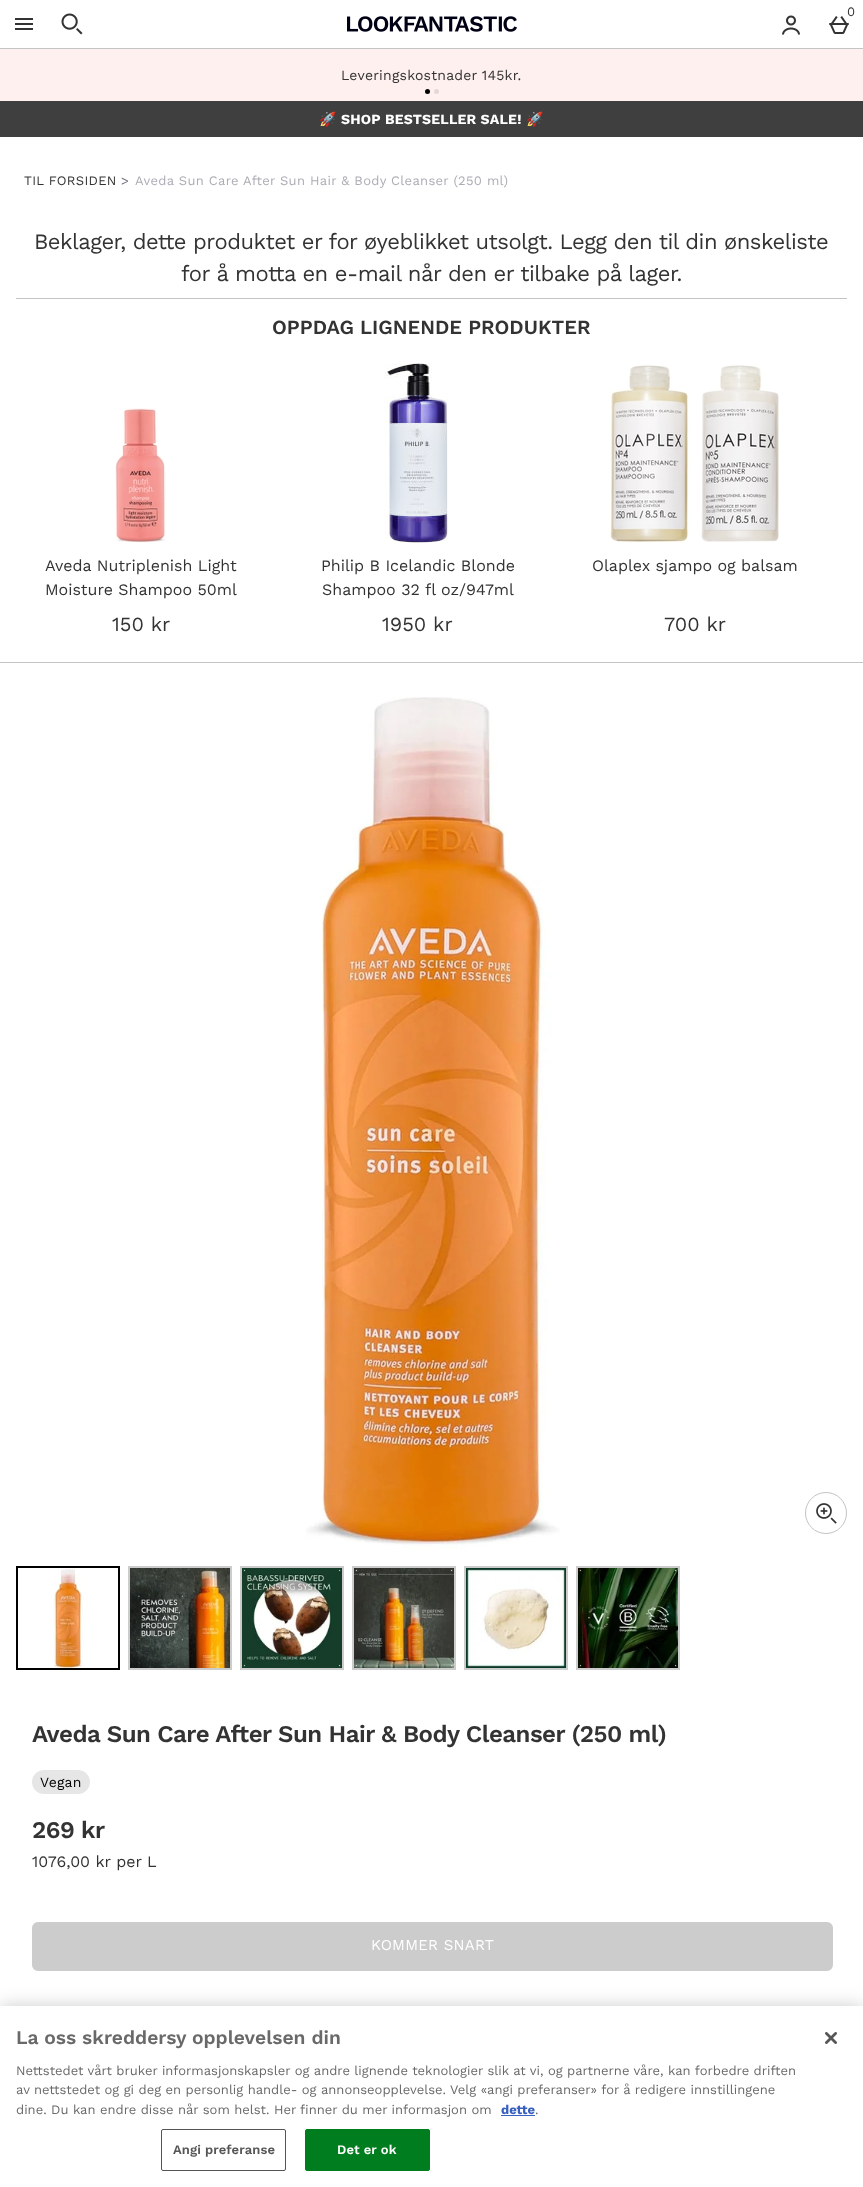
<svg xmlns="http://www.w3.org/2000/svg" width="863" height="2187">
<style>
.a{font:13px Work Sans;letter-spacing:0.3px;fill:#333}
.b{font:14px Work Sans;letter-spacing:0.2px;fill:#333}
.c{font:bold 14px Noto Color Emoji;letter-spacing:0.2px;fill:#fff}
.d{font:bold 14px Work Sans;letter-spacing:0.2px;fill:#fff}
.e{font:13px Work Sans;letter-spacing:0.3px;fill:#747583}
.f{font:13px Work Sans;letter-spacing:0.3px;fill:#acacb5}
.g{font:22px Work Sans;letter-spacing:-0.5px;fill:#333}
.h{font:600 20px Work Sans;fill:#333}
.i{font:16px Work Sans;fill:#333}
.j{font:20px Work Sans;fill:#333}
.k{font:600 24px Work Sans;letter-spacing:-0.5px;fill:#333}
.l{font:14px Work Sans;letter-spacing:0.2px;fill:#000}
.m{font:15px Work Sans;letter-spacing:0.25px;fill:#fff}
.n{font:600 19.25px Work Sans;fill:#696969}
.o{font:13px Work Sans;fill:#696969}
.p{font:bold 13px Work Sans;fill:#3860be}
.q{font:600 13px Work Sans;letter-spacing:0.1px;fill:#555}
.r{font:600 13px Work Sans;letter-spacing:0.1px;fill:#fff}
</style>
<rect width="100%" height="100%" fill="#fff"/>
<path fill="#c4c4c4" d="M0 48h863v1H0z"/>
<image href="1.png" x="829" y="16" width="20" height="18"/>
<image href="2.png" x="15" y="18" width="18" height="12"/>
<image href="3.png" x="61" y="13" width="22" height="22"/>
<image href="4.png" x="347" y="16" width="170" height="16"/>
<image href="5.png" x="782" y="15" width="18" height="20"/>
<path fill="#fdf0ee" d="M0 49h863v52H0z"/>
<circle fill="#000" cx="427.5" cy="91.5" r="2.5"/>
<circle fill="#e4d8d6" cx="436.5" cy="91.5" r="2.5"/>
<path fill="#3f3f3f" d="M0 101h863v36H0z"/>
<path fill="#c4c4c4" d="M0 662h863v1H0z"/>
<path fill="#c4c4c4" d="M16 298h831v1H16z"/>
<image href="6.png" x="115" y="408" width="51" height="135"/>
<image href="7.png" x="384" y="363" width="64" height="180"/>
<image href="8.png" x="610" y="365" width="169" height="178"/>
<image href="9.png" x="306" y="697" width="254" height="853"/>
<circle fill="none" stroke="#c4c4c4" cx="826" cy="1513" r="20.5"/>
<image href="10.png" x="816" y="1503" width="21" height="21"/>
<path fill="none" stroke="#000" stroke-width="2" d="M17 1567h102v102H17z"/>
<image href="11.png" x="53" y="1568" width="31" height="100"/>
<path fill="none" stroke="#ccc" stroke-width="2" d="M129 1567h102v102H129z"/>
<image href="12.png" x="130" y="1568" width="100" height="100"/>
<path fill="none" stroke="#ccc" stroke-width="2" d="M241 1567h102v102H241z"/>
<image href="13.png" x="242" y="1568" width="100" height="100"/>
<path fill="none" stroke="#ccc" stroke-width="2" d="M353 1567h102v102H353z"/>
<image href="14.png" x="354" y="1568" width="100" height="100"/>
<path fill="none" stroke="#ccc" stroke-width="2" d="M465 1567h102v102H465z"/>
<image href="15.png" x="466" y="1568" width="100" height="100"/>
<path fill="none" stroke="#ccc" stroke-width="2" d="M577 1567h102v102H577z"/>
<image href="16.png" x="578" y="1568" width="100" height="100"/>
<rect fill="#e6e6e6" x="32" y="1770" width="58" height="24" rx="12"/>
<rect fill="#ccc" stroke="#ccc" stroke-width="2" x="33" y="1923" width="799" height="47" rx="5"/>
<path fill="#00000033" filter="blur(9px)" d="M0 2006h863v181H0z"/>
<path fill="#fff" d="M0 2006h863v181H0z"/>
<path fill="#3860be" d="M501 2115h34v1H501z"/>
<rect fill="none" stroke="#555" x="161.5" y="2129.5" width="124" height="41" rx="1.5"/>
<rect fill="#007d1e" stroke="#007d1e" x="305.5" y="2129.5" width="124" height="41" rx="1.5"/>
<image href="17.png" x="825" y="2032" width="12" height="12"/>
<text class="a" x="847" y="16">0</text>
<text class="b" x="341" y="80">Leveringskostnader 145kr.</text>
<text class="c" x="319" y="124">🚀</text>
<text class="d" x="341" y="124">SHOP BESTSELLER SALE!</text>
<text class="c" x="526" y="124">🚀</text>
<text class="a" x="24" y="185">TIL FORSIDEN</text>
<text class="e" x="121" y="185">&gt;</text>
<text class="f" x="135" y="185">Aveda Sun Care After Sun Hair &amp; Body Cleanser (250 ml)</text>
<text class="g" x="34" y="249">Beklager, dette produktet er for øyeblikket utsolgt. Legg den til din ønskeliste</text>
<text class="g" x="181" y="281">for å motta en e-mail når den er tilbake på lager.</text>
<text class="h" x="272" y="334">OPPDAG LIGNENDE PRODUKTER</text>
<text class="i" x="45" y="571">Aveda Nutriplenish Light</text>
<text class="i" x="45" y="595">Moisture Shampoo 50ml</text>
<text class="j" x="112" y="631">150 kr</text>
<text class="i" x="321" y="571">Philip B Icelandic Blonde</text>
<text class="i" x="322" y="595">Shampoo 32 fl oz/947ml</text>
<text class="j" x="382" y="631">1950 kr</text>
<text class="i" x="592" y="571">Olaplex sjampo og balsam</text>
<text class="j" x="664" y="631">700 kr</text>
<text class="k" x="32" y="1742">Aveda Sun Care After Sun Hair &amp; Body Cleanser (250 ml)</text>
<text class="l" x="40" y="1787">Vegan</text>
<text class="k" x="32" y="1838">269 kr</text>
<text class="i" x="32" y="1867">1076,00 kr per L</text>
<text class="m" x="371" y="1950">KOMMER SNART</text>
<text class="n" x="16" y="2044">La oss skreddersy opplevelsen din</text>
<text class="o" x="16" y="2075">Nettstedet vårt bruker informasjonskapsler og andre lignende teknologier slik at vi, og partnerne våre, kan forbedre driften</text>
<text class="o" x="16" y="2094">av nettstedet og gi deg en personlig handle- og annonseopplevelse. Velg «angi preferanser» for å redigere innstillingene</text>
<text class="o" x="16" y="2114">dine. Du kan endre disse når som helst. Her finner du mer informasjon om</text>
<text class="p" x="501" y="2114">dette</text>
<text class="o" x="535" y="2114">.</text>
<text class="q" x="173" y="2154">Angi preferanse</text>
<text class="r" x="337" y="2154">Det er ok</text>
</svg>
